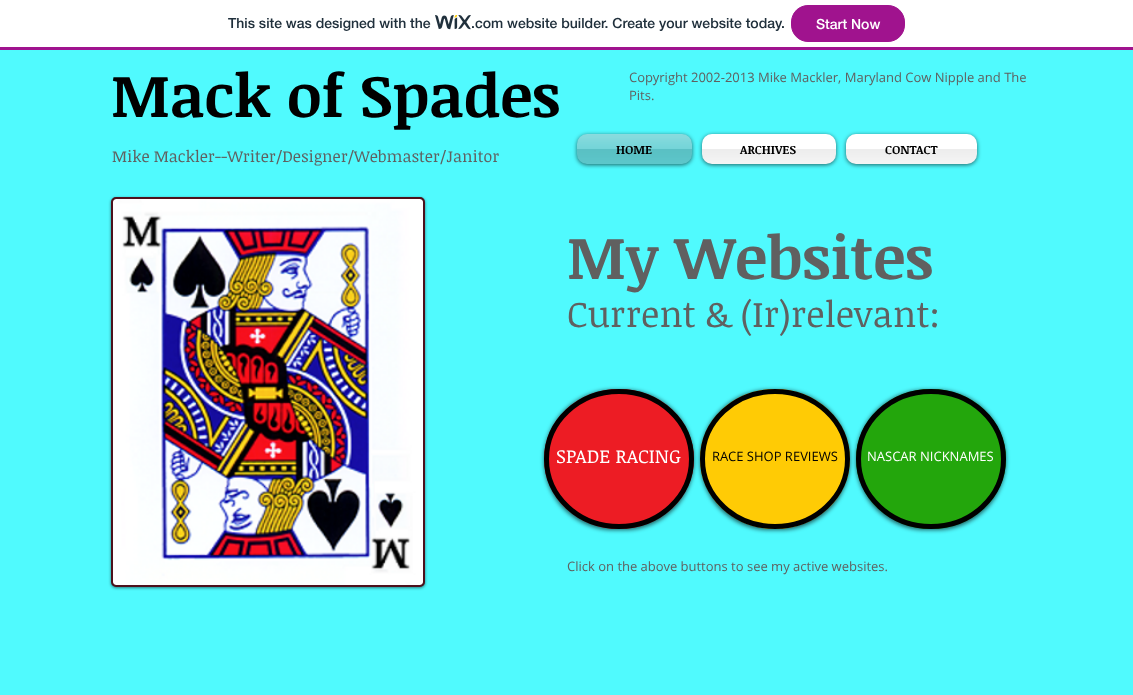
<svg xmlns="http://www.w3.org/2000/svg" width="1133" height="695">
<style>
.a{font:500 14px 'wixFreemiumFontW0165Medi';fill:#20303c}
.b{font:500 14px 'wixFreemiumFontW0165Medi';fill:#fff}
.c{font:bold 60px Noticia Text;fill:#000}
.d{font:13px Open Sans;fill:#606060}
.e{font:16px Noticia Text;fill:#606060}
.f{font:bold 12px Noticia Text;fill:#000}
.g{font:bold 60px Noticia Text;fill:#606060}
.h{font:36px Noticia Text;fill:#606060}
.i{font:19px Noticia Text;fill:#fff}
.j{font:13px Open Sans;fill:#000}
.k{font:13px Open Sans;fill:#fff}
</style>
<rect width="100%" height="100%" fill="#fff"/>
<path fill="#a0138e" d="M0 47h1133v3H0z"/>
<image href="1.png" x="435" y="15" width="36" height="15"/>
<rect fill="#a0138e" stroke="#a0138e" x="791.5" y="5.5" width="113" height="36" rx="16.5"/>
<path fill="#50fafe" d="M0 50h1133v645H0z"/>
<rect fill="#00000099" filter="blur(2px)" x="577" y="135" width="115" height="30" rx="10"/>
<rect fill="#61cfd3" x="577" y="134" width="115" height="30" rx="10"/>
<image href="2.png" x="577" y="134" width="115" height="30"/>
<rect fill="#00000099" filter="blur(2px)" x="702" y="135" width="134" height="30" rx="10"/>
<rect fill="#fff" x="702" y="134" width="134" height="30" rx="10"/>
<image href="3.png" x="702" y="134" width="134" height="30"/>
<rect fill="#00000099" filter="blur(2px)" x="846" y="135" width="131" height="30" rx="10"/>
<rect fill="#fff" x="846" y="134" width="131" height="30" rx="10"/>
<image href="4.png" x="846" y="134" width="131" height="30"/>
<rect fill="#00000080" filter="blur(1.5px)" x="111" y="198" width="314" height="390" rx="5"/>
<rect fill="#4d111c" stroke="#4d111c" stroke-width="2" x="112" y="198" width="312" height="388" rx="4"/>
<image href="5.png" x="113" y="199" width="310" height="386"/>
<rect fill="#00000099" filter="blur(2px)" x="544" y="390" width="150" height="140" rx="70"/>
<ellipse fill="#ed1c24" cx="619" cy="459" rx="75" ry="70"/>
<path fill="none" stroke="#000" stroke-width="5" d="M619 391.5c40 0 72.5 30 72.5 67.5c0 37.5-32.5 67.5-72.5 67.5c-40 0-72.5-30-72.5-67.5c0-37.5 32.5-67.5 72.5-67.5z"/>
<rect fill="#00000099" filter="blur(2px)" x="700" y="390" width="150" height="140" rx="70"/>
<ellipse fill="#ffcb05" cx="775" cy="459" rx="75" ry="70"/>
<path fill="none" stroke="#000" stroke-width="5" d="M775 391.5c40 0 72.5 30 72.5 67.5c0 37.5-32.5 67.5-72.5 67.5c-40 0-72.5-30-72.5-67.5c0-37.5 32.5-67.5 72.5-67.5z"/>
<rect fill="#00000099" filter="blur(2px)" x="856" y="390" width="150" height="140" rx="70"/>
<ellipse fill="#23a60c" cx="931" cy="459" rx="75" ry="70"/>
<path fill="none" stroke="#000" stroke-width="5" d="M931 391.5c40 0 72.5 30 72.5 67.5c0 37.5-32.5 67.5-72.5 67.5c-40 0-72.5-30-72.5-67.5c0-37.5 32.5-67.5 72.5-67.5z"/>
<text class="a" x="228" y="28">This site was designed with the</text>
<text class="a" x="471" y="28">.com website builder. Create your website today.</text>
<text class="b" x="816" y="29">Start Now</text>
<text class="c" x="111" y="117">Mack of Spades</text>
<text class="d" x="629" y="82">Copyright 2002-2013 Mike Mackler, Maryland Cow Nipple and The</text>
<text class="d" x="629" y="100">Pits.</text>
<text class="e" x="112" y="162">Mike Mackler--Writer/Designer/Webmaster/Janitor</text>
<text class="f" x="616" y="154">HOME</text>
<text class="f" x="740" y="154">ARCHIVES</text>
<text class="f" x="885" y="154">CONTACT</text>
<text class="g" x="567" y="279">My Websites</text>
<text class="h" x="567" y="327">Current &amp; (Ir)relevant:</text>
<text class="d" x="567" y="571">Click on the above buttons to see my active websites.</text>
<text class="i" x="556" y="463">SPADE RACING</text>
<text class="j" x="712" y="461">RACE SHOP REVIEWS</text>
<text class="k" x="867" y="461">NASCAR NICKNAMES</text>
</svg>
